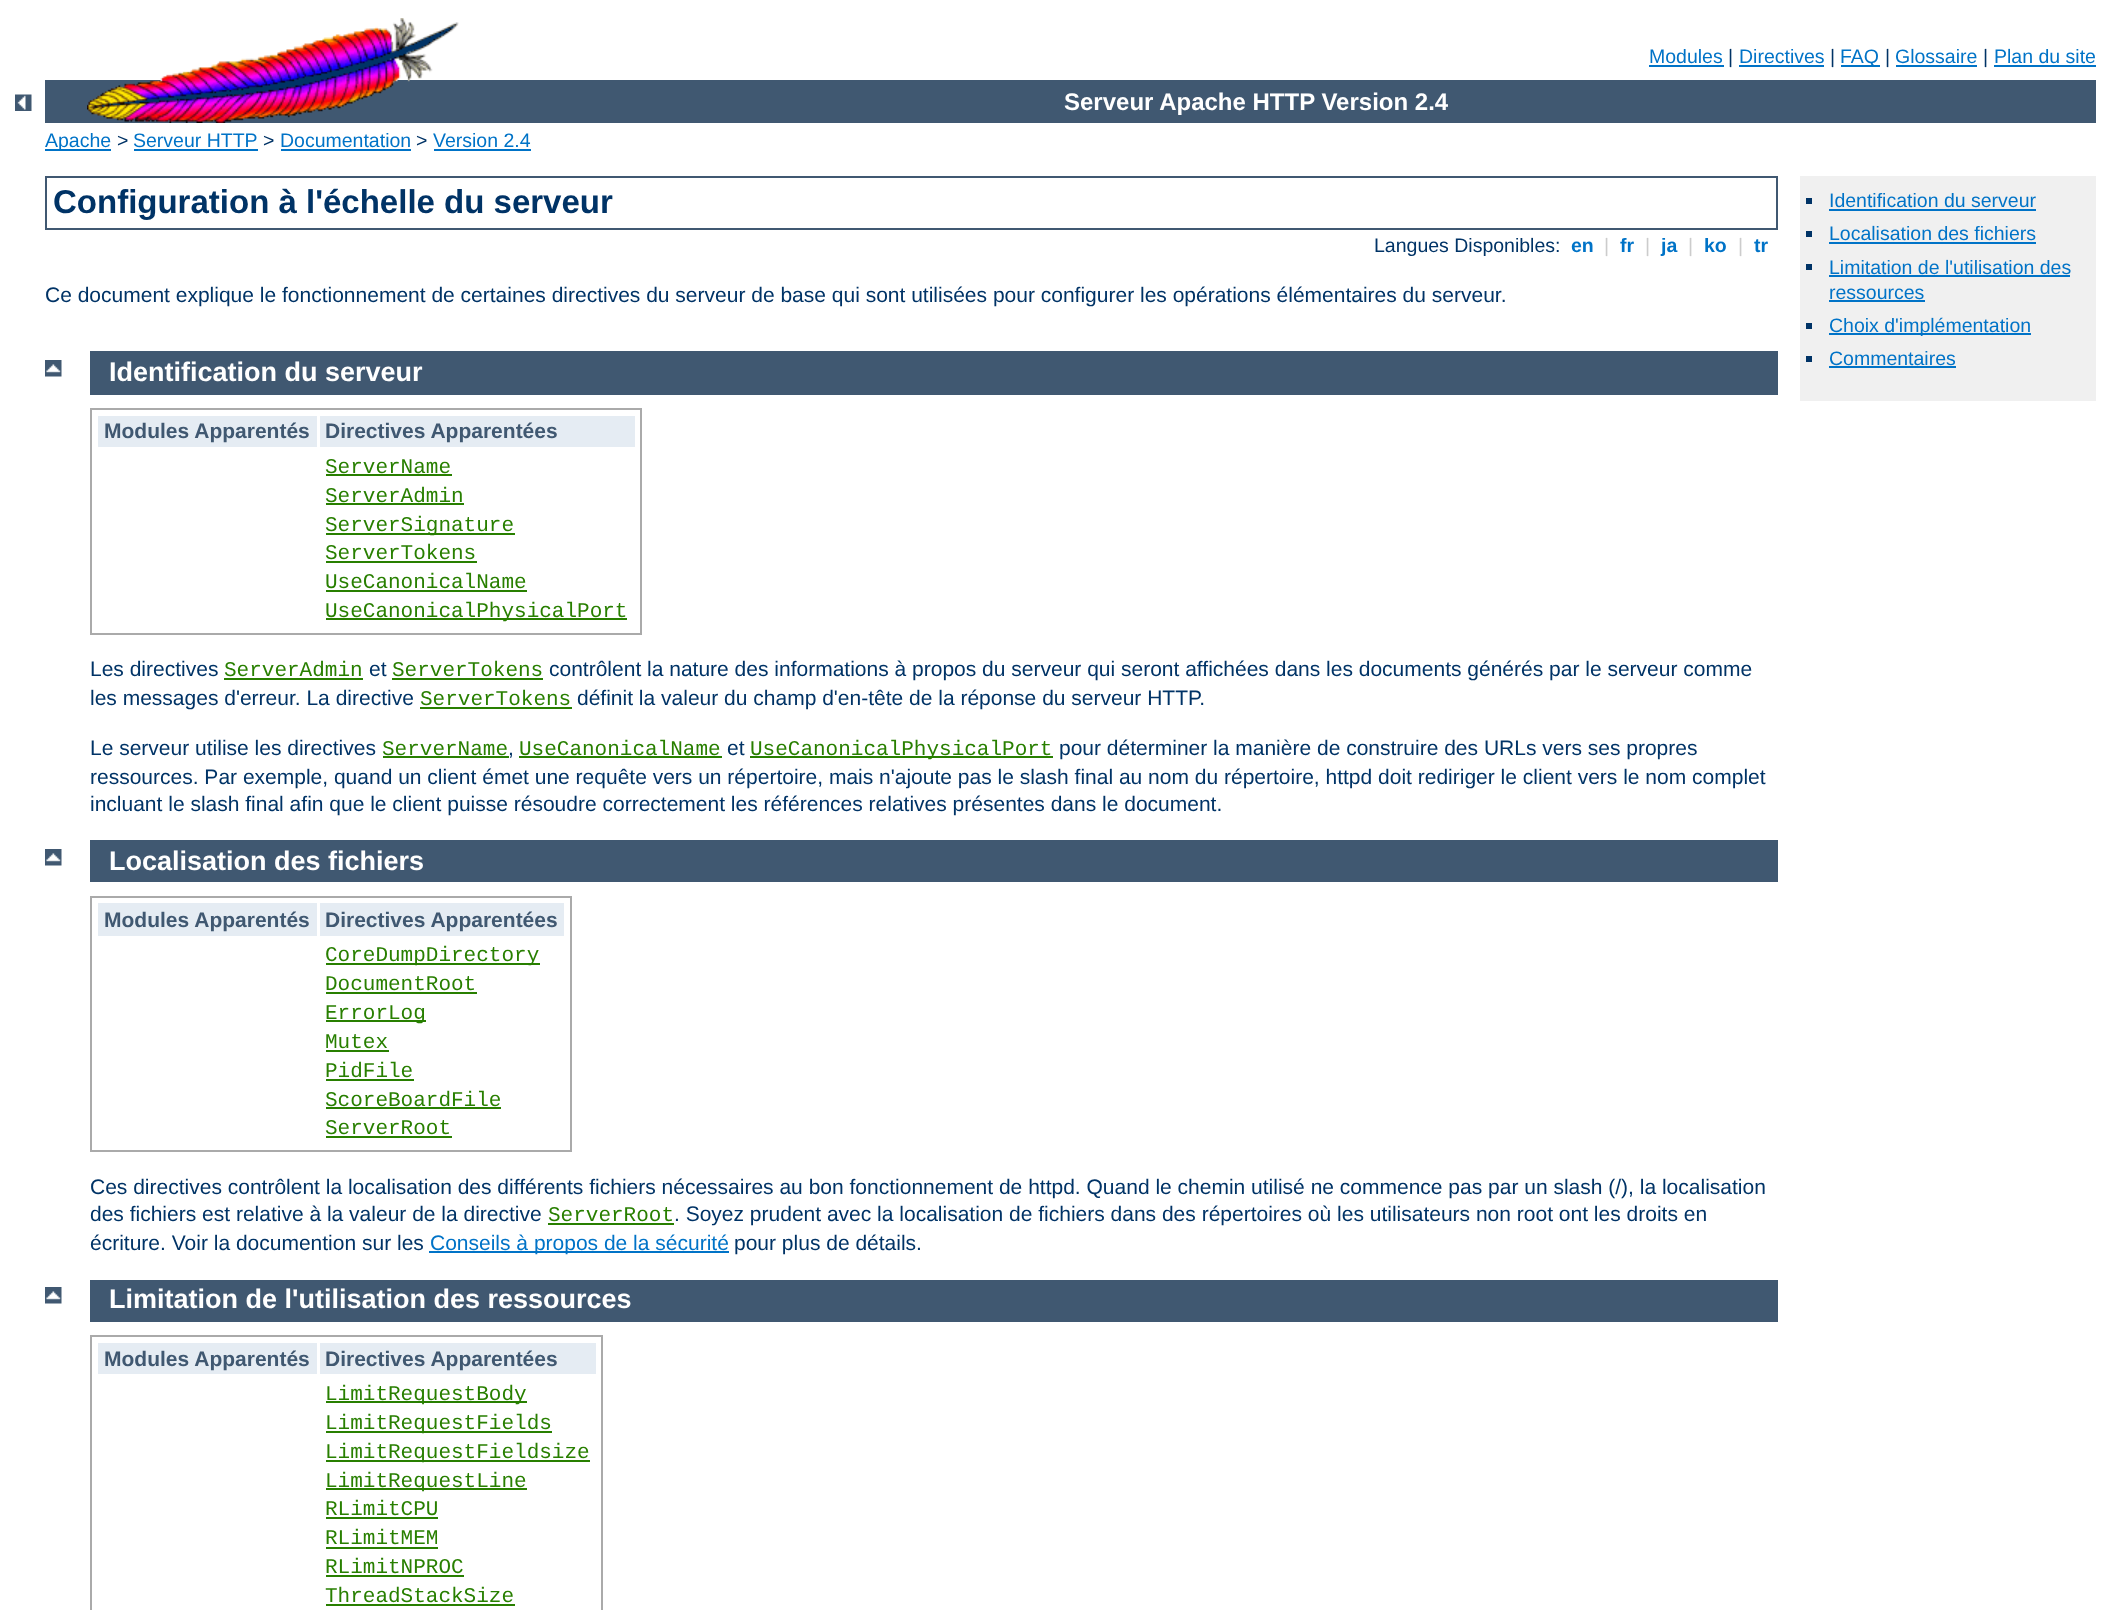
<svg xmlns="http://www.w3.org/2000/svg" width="2116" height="1610">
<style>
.a{font:19.5px Liberation Sans;fill:#0073c7}
.b{font:19.5px Liberation Sans;fill:#036}
.c{font:bold 24px Liberation Sans;fill:#fff}
.d{font:bold 33px Liberation Sans;fill:#036}
.e{font:bold 19.5px Liberation Sans;fill:#0073c7}
.f{font:19.5px Liberation Sans;fill:#ccc}
.g{font:21px Liberation Sans;fill:#036}
.h{font:bold 27px Liberation Sans;fill:#fff}
.i{font:bold 21px Liberation Sans;fill:#405871}
.j{font:21px Liberation Mono;fill:#287f00}
.k{font:21px Liberation Sans;fill:#0073c7}
</style>
<rect width="100%" height="100%" fill="#fff"/>
<image href="1.png" x="15" y="94" width="17" height="17"/>
<path fill="#405871" d="M45 80h2051v43H45z"/>
<image href="2.png" x="87" y="18" width="372" height="105"/>
<path fill="#0073c7" d="M1649 65h75v2H1649z"/>
<path fill="#0073c7" d="M1739 65h85v2H1739z"/>
<path fill="#0073c7" d="M1841 65h39v2H1841z"/>
<path fill="#0073c7" d="M1896 65h81v2H1896z"/>
<path fill="#0073c7" d="M1994 65h102v2H1994z"/>
<path fill="#0073c7" d="M45 149h66v2H45z"/>
<path fill="#0073c7" d="M134 149h124v2H134z"/>
<path fill="#0073c7" d="M281 149h130v2H281z"/>
<path fill="#0073c7" d="M434 149h97v2H434z"/>
<path fill="none" stroke="#405871" stroke-width="2" d="M46 177h1731v52H46z"/>
<path fill="#f0f0f0" d="M1800 176h296v225H1800z"/>
<path fill="#036" d="M1806 198h6v6H1806z"/>
<path fill="#0073c7" d="M1829 209h207v2H1829z"/>
<path fill="#036" d="M1806 231h6v6H1806z"/>
<path fill="#0073c7" d="M1829 242h207v2H1829z"/>
<path fill="#036" d="M1806 264h6v6H1806z"/>
<path fill="#0073c7" d="M1829 275h241v2H1829z"/>
<path fill="#0073c7" d="M1829 300h96v2H1829z"/>
<path fill="#036" d="M1806 323h6v6H1806z"/>
<path fill="#0073c7" d="M1829 333h202v2H1829z"/>
<path fill="#036" d="M1806 356h6v6H1806z"/>
<path fill="#0073c7" d="M1829 366h127v2H1829z"/>
<image href="3.png" x="45" y="360" width="17" height="17"/>
<path fill="#405871" d="M90 351h1688v44H90z"/>
<path fill="none" stroke="#aaa" stroke-width="2" d="M91 409h550v225H91z"/>
<path fill="#e5ecf3" d="M98 416h219v31H98z"/>
<path fill="#e5ecf3" d="M320 416h315v31H320z"/>
<path fill="#287f00" d="M326 474h126v2H326z"/>
<path fill="#287f00" d="M326 503h138v2H326z"/>
<path fill="#287f00" d="M326 533h189v2H326z"/>
<path fill="#287f00" d="M326 561h151v2H326z"/>
<path fill="#287f00" d="M326 590h201v2H326z"/>
<path fill="#287f00" d="M326 618h301v2H326z"/>
<path fill="#287f00" d="M224 678h139v2H224z"/>
<path fill="#287f00" d="M392 678h151v2H392z"/>
<path fill="#287f00" d="M420 707h152v2H420z"/>
<path fill="#287f00" d="M383 756h126v2H383z"/>
<path fill="#287f00" d="M519 756h203v2H519z"/>
<path fill="#287f00" d="M750 756h303v2H750z"/>
<image href="3.png" x="45" y="849" width="17" height="17"/>
<path fill="#405871" d="M90 840h1688v42H90z"/>
<path fill="none" stroke="#aaa" stroke-width="2" d="M91 897h480v254H91z"/>
<path fill="#e5ecf3" d="M98 903h219v33H98z"/>
<path fill="#e5ecf3" d="M320 903h244v33H320z"/>
<path fill="#287f00" d="M326 963h214v2H326z"/>
<path fill="#287f00" d="M326 992h151v2H326z"/>
<path fill="#287f00" d="M326 1020h100v2H326z"/>
<path fill="#287f00" d="M326 1050h63v2H326z"/>
<path fill="#287f00" d="M326 1079h88v2H326z"/>
<path fill="#287f00" d="M326 1107h175v2H326z"/>
<path fill="#287f00" d="M326 1136h126v2H326z"/>
<path fill="#287f00" d="M548 1223h126v2H548z"/>
<path fill="#0073c7" d="M429 1251h300v2H429z"/>
<image href="3.png" x="45" y="1287" width="17" height="17"/>
<path fill="#405871" d="M90 1280h1688v42H90z"/>
<path fill="none" stroke="#aaa" stroke-width="2" d="M91 1336h511v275H91z"/>
<path fill="#e5ecf3" d="M98 1343h219v31H98z"/>
<path fill="#e5ecf3" d="M320 1343h276v31H320z"/>
<path fill="#287f00" d="M326 1401h201v2H326z"/>
<path fill="#287f00" d="M326 1431h226v2H326z"/>
<path fill="#287f00" d="M326 1460h264v2H326z"/>
<path fill="#287f00" d="M326 1488h201v2H326z"/>
<path fill="#287f00" d="M326 1517h112v2H326z"/>
<path fill="#287f00" d="M326 1547h112v2H326z"/>
<path fill="#287f00" d="M326 1575h138v2H326z"/>
<path fill="#287f00" d="M326 1604h189v2H326z"/>
<text class="a" x="1649" y="63">Modules</text>
<text class="b" x="1728" y="63">|</text>
<text class="a" x="1739" y="63">Directives</text>
<text class="b" x="1830" y="63">|</text>
<text class="a" x="1840" y="63">FAQ</text>
<text class="b" x="1885" y="63">|</text>
<text class="a" x="1895" y="63">Glossaire</text>
<text class="b" x="1983" y="63">|</text>
<text class="a" x="1994" y="63">Plan du site</text>
<text class="c" x="1064" y="110">Serveur Apache HTTP Version 2.4</text>
<text class="a" x="45" y="147">Apache</text>
<text class="b" x="117" y="147">&gt;</text>
<text class="a" x="133" y="147">Serveur HTTP</text>
<text class="b" x="263" y="147">&gt;</text>
<text class="a" x="280" y="147">Documentation</text>
<text class="b" x="416" y="147">&gt;</text>
<text class="a" x="433" y="147">Version 2.4</text>
<text class="d" x="53" y="213">Configuration à l'échelle du serveur</text>
<text class="b" x="1374" y="252">Langues Disponibles:</text>
<text class="e" x="1571" y="252">en</text>
<text class="f" x="1604" y="252">|</text>
<text class="e" x="1620" y="252">fr</text>
<text class="f" x="1645" y="252">|</text>
<text class="e" x="1661" y="252">ja</text>
<text class="f" x="1688" y="252">|</text>
<text class="e" x="1704" y="252">ko</text>
<text class="f" x="1738" y="252">|</text>
<text class="e" x="1754" y="252">tr</text>
<text class="g" x="45" y="302">Ce document explique le fonctionnement de certaines directives du serveur de base qui sont utilisées pour configurer les opérations élémentaires du serveur.</text>
<text class="a" x="1829" y="207">Identification du serveur</text>
<text class="a" x="1829" y="240">Localisation des fichiers</text>
<text class="a" x="1829" y="274">Limitation de l'utilisation des</text>
<text class="a" x="1829" y="299">ressources</text>
<text class="a" x="1829" y="332">Choix d'implémentation</text>
<text class="a" x="1829" y="365">Commentaires</text>
<text class="h" x="109" y="381">Identification du serveur</text>
<text class="i" x="104" y="438">Modules Apparentés</text>
<text class="i" x="325" y="438">Directives Apparentées</text>
<text class="j" x="325" y="473">ServerName</text>
<text class="j" x="325" y="502">ServerAdmin</text>
<text class="j" x="325" y="531">ServerSignature</text>
<text class="j" x="325" y="559">ServerTokens</text>
<text class="j" x="325" y="588">UseCanonicalName</text>
<text class="j" x="325" y="617">UseCanonicalPhysicalPort</text>
<text class="g" x="90" y="676">Les directives</text>
<text class="j" x="224" y="676">ServerAdmin</text>
<text class="g" x="369" y="676">et</text>
<text class="j" x="392" y="676">ServerTokens</text>
<text class="g" x="549" y="676">contrôlent la nature des informations à propos du serveur qui seront affichées dans les documents générés par le serveur comme</text>
<text class="g" x="90" y="705">les messages d'erreur. La directive</text>
<text class="j" x="420" y="705">ServerTokens</text>
<text class="g" x="577" y="705">définit la valeur du champ d'en-tête de la réponse du serveur HTTP.</text>
<text class="g" x="90" y="755">Le serveur utilise les directives</text>
<text class="j" x="382" y="755">ServerName</text>
<text class="g" x="508" y="755">,</text>
<text class="j" x="519" y="755">UseCanonicalName</text>
<text class="g" x="727" y="755">et</text>
<text class="j" x="750" y="755">UseCanonicalPhysicalPort</text>
<text class="g" x="1059" y="755">pour déterminer la manière de construire des URLs vers ses propres</text>
<text class="g" x="90" y="784">ressources. Par exemple, quand un client émet une requête vers un répertoire, mais n'ajoute pas le slash final au nom du répertoire, httpd doit rediriger le client vers le nom complet</text>
<text class="g" x="90" y="811">incluant le slash final afin que le client puisse résoudre correctement les références relatives présentes dans le document.</text>
<text class="h" x="109" y="870">Localisation des fichiers</text>
<text class="i" x="104" y="927">Modules Apparentés</text>
<text class="i" x="325" y="927">Directives Apparentées</text>
<text class="j" x="325" y="961">CoreDumpDirectory</text>
<text class="j" x="325" y="990">DocumentRoot</text>
<text class="j" x="325" y="1019">ErrorLog</text>
<text class="j" x="325" y="1048">Mutex</text>
<text class="j" x="325" y="1077">PidFile</text>
<text class="j" x="325" y="1106">ScoreBoardFile</text>
<text class="j" x="325" y="1134">ServerRoot</text>
<text class="g" x="90" y="1194">Ces directives contrôlent la localisation des différents fichiers nécessaires au bon fonctionnement de httpd. Quand le chemin utilisé ne commence pas par un slash (/), la localisation</text>
<text class="g" x="90" y="1221">des fichiers est relative à la valeur de la directive</text>
<text class="j" x="548" y="1221">ServerRoot</text>
<text class="g" x="674" y="1221">. Soyez prudent avec la localisation de fichiers dans des répertoires où les utilisateurs non root ont les droits en</text>
<text class="g" x="90" y="1250">écriture. Voir la documention sur les</text>
<text class="k" x="430" y="1250">Conseils à propos de la sécurité</text>
<text class="g" x="734" y="1250">pour plus de détails.</text>
<text class="h" x="109" y="1308">Limitation de l'utilisation des ressources</text>
<text class="i" x="104" y="1366">Modules Apparentés</text>
<text class="i" x="325" y="1366">Directives Apparentées</text>
<text class="j" x="325" y="1400">LimitRequestBody</text>
<text class="j" x="325" y="1429">LimitRequestFields</text>
<text class="j" x="325" y="1458">LimitRequestFieldsize</text>
<text class="j" x="325" y="1487">LimitRequestLine</text>
<text class="j" x="325" y="1515">RLimitCPU</text>
<text class="j" x="325" y="1544">RLimitMEM</text>
<text class="j" x="325" y="1573">RLimitNPROC</text>
<text class="j" x="325" y="1602">ThreadStackSize</text>
</svg>
